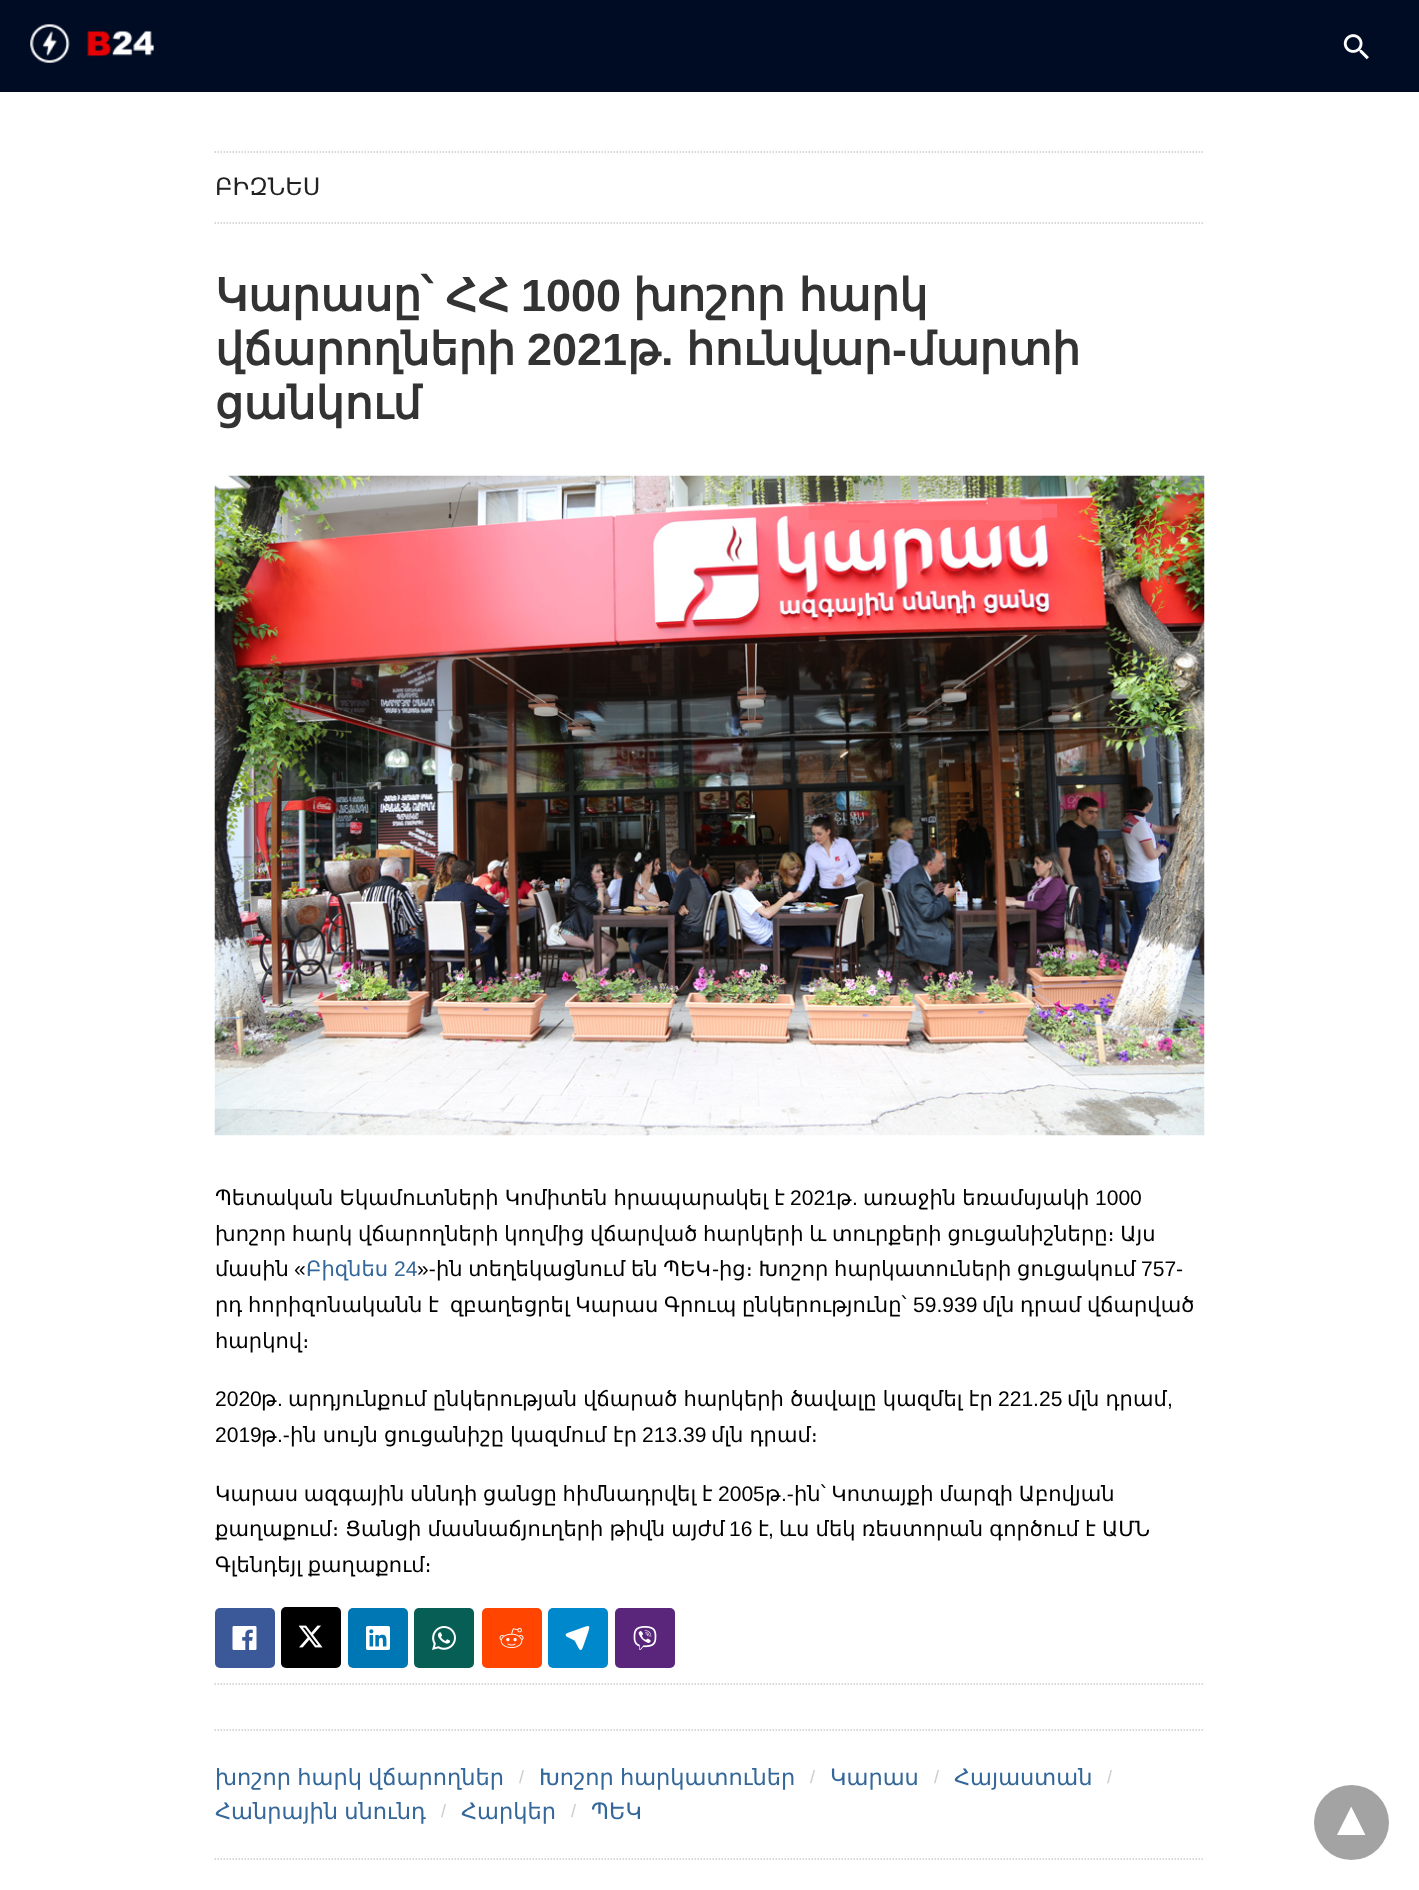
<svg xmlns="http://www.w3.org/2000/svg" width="1419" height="1890">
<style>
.a{font:24px DejaVu Sans;fill:#222}
.b{font:bold 45px DejaVu Sans;fill:#333}
.c{font:bold 45px Liberation Sans;fill:#333}
.d{font:21.05px DejaVu Sans;fill:#000}
.e{font:21.05px Liberation Sans;fill:#000}
.f{font:21.05px DejaVu Sans;fill:#369}
.g{font:21.05px Liberation Sans;fill:#369}
.h{font:22.5px DejaVu Sans;fill:#369}
.i{font:18px Liberation Sans;fill:#ccc}
.j{font:bold 52px DejaVu Sans;fill:#fff}
</style>
<rect width="100%" height="100%" fill="#fff"/>
<path fill="#000b24" d="M0 0h1419v90H0z"/>
<path fill="#000a20" d="M0 90h1419v2H0z"/>
<image href="1.png" x="30" y="24" width="124" height="39"/>
<image href="2.png" x="1343" y="34" width="26" height="26"/>
<path fill="none" stroke="#ccc" stroke-width="1.5" stroke-dasharray="1.5 1.5" d="M214.5 152h990"/>
<path fill="none" stroke="#ccc" stroke-width="1.5" stroke-dasharray="1.5 1.5" d="M214.5 223h990"/>
<image href="3.png" x="214" y="475" width="991" height="661"/>
<path fill="none" stroke="#ccc" stroke-width="1.5" stroke-dasharray="1.5 1.5" d="M214.5 1730h990"/>
<path fill="none" stroke="#ccc" stroke-width="1.5" stroke-dasharray="1.5 1.5" d="M214.5 1684h990"/>
<rect fill="#3b5998" x="215" y="1608" width="60" height="60" rx="5"/>
<image href="4.png" x="232" y="1626" width="25" height="24"/>
<rect fill="#000" x="281" y="1607" width="60" height="61" rx="5"/>
<image href="5.png" x="299" y="1625" width="24" height="23"/>
<rect fill="#0077b5" x="348" y="1608" width="60" height="60" rx="5"/>
<image href="6.png" x="366" y="1626" width="24" height="24"/>
<rect fill="#075e54" x="414" y="1608" width="60" height="60" rx="5"/>
<image href="7.png" x="432" y="1626" width="24" height="24"/>
<rect fill="#ff4500" x="482" y="1608" width="60" height="60" rx="5"/>
<image href="8.png" x="499" y="1628" width="25" height="21"/>
<rect fill="#08c" x="548" y="1608" width="60" height="60" rx="5"/>
<image href="9.png" x="565" y="1626" width="25" height="24"/>
<rect fill="#59267c" x="615" y="1608" width="60" height="60" rx="5"/>
<image href="10.png" x="633" y="1626" width="24" height="24"/>
<path fill="none" stroke="#ccc" stroke-width="1.5" stroke-dasharray="1.5 1.5" d="M214.5 1859h990"/>
<circle fill="#a3a3a3" cx="1351.5" cy="1822.5" r="37.5"/>
<text class="a" x="215" y="195">ԲԻԶՆԵՍ</text>
<text class="b" x="215" y="311" word-spacing="-1">Կարասը՝ ՀՀ</text>
<text class="c" x="521" y="311">1000</text>
<text class="b" x="633" y="311" word-spacing="-1">խոշոր հարկ</text>
<text class="b" x="215" y="365">վճարողների</text>
<text class="c" x="527" y="365">2021</text>
<text class="b" x="627" y="365">թ</text>
<text class="b" x="686" y="365">հունվար</text>
<text class="c" x="892" y="365">-</text>
<text class="b" x="907" y="365">մարտի</text>
<text class="c" x="661" y="365">.</text>
<text class="b" x="215" y="419">ցանկում</text>
<text class="d" x="215" y="1205" word-spacing="-0.5">Պետական Եկամուտների Կոմիտեն հրապարակել է</text>
<text class="e" x="790" y="1205">2021</text>
<text class="d" x="836" y="1205">թ</text>
<text class="e" x="852" y="1205">.</text>
<text class="d" x="863" y="1205" word-spacing="-0.5">առաջին եռամսյակի</text>
<text class="e" x="1095" y="1205">1000</text>
<text class="d" x="215" y="1241" word-spacing="-1">խոշոր հարկ վճարողների կողմից վճարված հարկերի և տուրքերի ցուցանիշները։ Այս</text>
<text class="d" x="215" y="1276">մասին</text>
<text class="e" x="294" y="1276">«</text>
<text class="f" x="306" y="1276">Բիզնես</text>
<text class="g" x="394" y="1276">24</text>
<text class="e" x="417" y="1276">»-</text>
<text class="d" x="436" y="1276" word-spacing="-1">ին տեղեկացնում են ՊԵԿ</text>
<text class="e" x="712" y="1276">-</text>
<text class="d" x="719" y="1276" word-spacing="-1">ից։ Խոշոր հարկատուների ցուցակում</text>
<text class="e" x="1141" y="1276">757-</text>
<text class="d" x="215" y="1312" word-spacing="-1">րդ հորիզոնականն է</text>
<text class="d" x="450" y="1312" word-spacing="-1">զբաղեցրել Կարաս Գրուպ ընկերությունը՝</text>
<text class="e" x="913" y="1312">59.939</text>
<text class="d" x="982" y="1312" word-spacing="-1">մլն դրամ վճարված</text>
<text class="d" x="215" y="1348">հարկով։</text>
<text class="e" x="215" y="1406">2020</text>
<text class="d" x="261" y="1406">թ</text>
<text class="e" x="277" y="1406">.</text>
<text class="d" x="288" y="1406" word-spacing="-0.5">արդյունքում ընկերության վճարած հարկերի ծավալը կազմել էր</text>
<text class="e" x="998" y="1406">221.25</text>
<text class="d" x="1067" y="1406" word-spacing="-0.5">մլն դրամ</text>
<text class="e" x="1167" y="1406">,</text>
<text class="e" x="215" y="1442">2019</text>
<text class="d" x="261" y="1442">թ</text>
<text class="e" x="277" y="1442">.-</text>
<text class="d" x="290" y="1442" word-spacing="-0.5">ին սույն ցուցանիշը կազմում էր</text>
<text class="e" x="642" y="1442">213.39</text>
<text class="d" x="711" y="1442" word-spacing="-0.5">մլն դրամ։</text>
<text class="d" x="215" y="1501" word-spacing="-1">Կարաս ազգային սննդի ցանցը հիմնադրվել է</text>
<text class="e" x="718" y="1501">2005</text>
<text class="d" x="765" y="1501">թ</text>
<text class="e" x="781" y="1501">.-</text>
<text class="d" x="794" y="1501" word-spacing="-1">ին՝ Կոտայքի մարզի Աբովյան</text>
<text class="d" x="215" y="1536" word-spacing="-0.5">քաղաքում։ Ցանցի մասնաճյուղերի թիվն այժմ</text>
<text class="e" x="729" y="1536">16</text>
<text class="d" x="758" y="1536">է</text>
<text class="e" x="768" y="1536">,</text>
<text class="d" x="779" y="1536" word-spacing="-0.5">ևս մեկ ռեստորան գործում է ԱՄՆ</text>
<text class="d" x="215" y="1572" word-spacing="-1">Գլենդեյլ քաղաքում։</text>
<text class="h" x="215" y="1785" word-spacing="-1">խոշոր հարկ վճարողներ</text>
<text class="i" x="519" y="1783">/</text>
<text class="h" x="539" y="1785" word-spacing="-1">Խոշոր հարկատուներ</text>
<text class="i" x="810" y="1783">/</text>
<text class="h" x="830" y="1785">Կարաս</text>
<text class="i" x="934" y="1783">/</text>
<text class="h" x="954" y="1785">Հայաստան</text>
<text class="i" x="1107" y="1783">/</text>
<text class="h" x="215" y="1819" word-spacing="-1">Հանրային սնունդ</text>
<text class="i" x="441" y="1817">/</text>
<text class="h" x="461" y="1819">Հարկեր</text>
<text class="i" x="571" y="1817">/</text>
<text class="h" x="591" y="1819">ՊԵԿ</text>
<text class="j" x="1365" y="1807" transform="rotate(180 1365 1807)">▾</text>
</svg>
